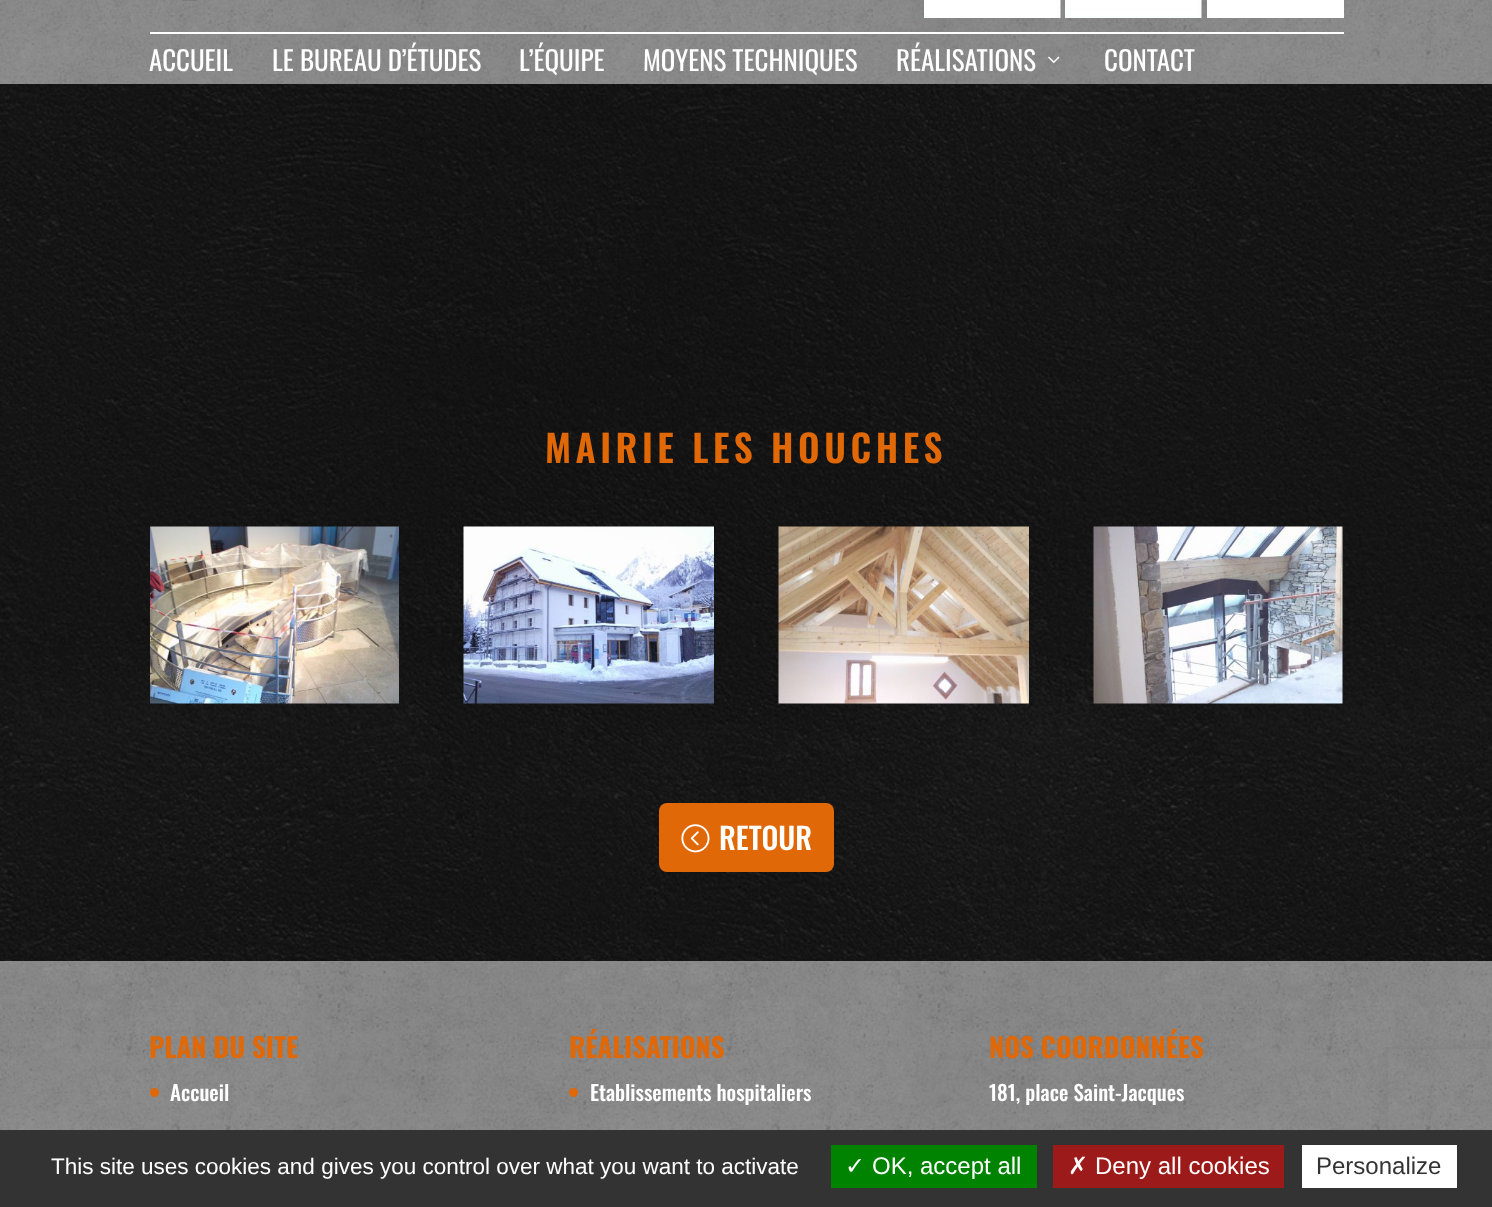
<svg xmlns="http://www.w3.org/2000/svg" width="1492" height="1207">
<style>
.a{font:27px Oswald;fill:#fff}
.b{font:600 37.5px Oswald;letter-spacing:4.5px;fill:#e06806}
.c{font:500 30px Oswald;fill:#fff}
.d{font:bold 27px Oswald;fill:#e06806}
.e{font:500 21px Oswald;fill:#fff}
.f{font:22.5px Liberation Sans;fill:#fff}
.g{font:24px DejaVu Sans;fill:#fff}
.h{font:24px Liberation Sans;fill:#fff}
.i{font:24px Liberation Sans;fill:#333}
</style>
<defs>
<clipPath id="clip1"><path d="M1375 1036h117v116h-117zm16 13h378c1.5 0 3 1.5 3 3v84c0 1.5-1.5 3-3 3h-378c-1.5 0-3-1.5-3-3v-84c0-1.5 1.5-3 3-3z" clip-rule="evenodd"/></clipPath>
</defs>
<rect width="100%" height="100%" fill="#fff"/>
<image href="1.png" x="0" y="0" width="1492" height="84"/>
<path fill="#fff" d="M150 32h1194v2H150z"/>
<image href="2.png" x="181" y="0" width="18" height="1"/>
<image href="3.png" x="924" y="0" width="137" height="18"/>
<image href="4.png" x="1065" y="0" width="137" height="18"/>
<path fill="#fff" d="M1207 0h137v18H1207z"/>
<image href="5.png" x="1048" y="56" width="12" height="7"/>
<image href="6.png" x="0" y="84" width="1492" height="878"/>
<image href="7.png" x="150" y="526" width="249" height="178"/>
<image href="8.png" x="463" y="526" width="251" height="178"/>
<image href="9.png" x="778" y="526" width="251" height="178"/>
<image href="10.png" x="1093" y="526" width="250" height="178"/>
<rect fill="#e06806" x="659" y="803" width="175" height="69" rx="8"/>
<image href="11.png" x="681" y="824" width="29" height="29"/>
<image href="12.png" x="0" y="962" width="1492" height="168"/>
<circle fill="#e06806" cx="154.5" cy="1092.5" r="4.5"/>
<circle fill="#e06806" cx="573.5" cy="1092.5" r="4.5"/>
<g clip-path="url(#clip1)">
<rect fill="#808080" filter="blur(4px)" x="1388" y="1049" width="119" height="90" rx="3"/>
</g>
<path fill="#333" d="M0 1130h1492v77H0z"/>
<path fill="#008300" d="M831 1145h206v43H831z"/>
<path fill="#9c1a1a" d="M1053 1145h231v43H1053z"/>
<path fill="#fff" d="M1302 1145h155v43H1302z"/>
<text class="a" x="149" y="71">ACCUEIL</text>
<text class="a" x="272" y="71">LE BUREAU D’ÉTUDES</text>
<text class="a" x="519" y="71">L’ÉQUIPE</text>
<text class="a" x="643" y="71">MOYENS TECHNIQUES</text>
<text class="a" x="896" y="71">RÉALISATIONS</text>
<text class="a" x="1104" y="71">CONTACT</text>
<text class="b" x="545" y="463">MAIRIE LES HOUCHES</text>
<text class="c" x="719" y="850">RETOUR</text>
<text class="d" x="149" y="1058">PLAN DU SITE</text>
<text class="e" x="170" y="1101">Accueil</text>
<text class="d" x="569" y="1058">RÉALISATIONS</text>
<text class="e" x="590" y="1101">Etablissements hospitaliers</text>
<text class="d" x="989" y="1058">NOS COORDONNÉES</text>
<text class="e" x="989" y="1101">181, place Saint-Jacques</text>
<text class="f" x="51" y="1174">This site uses cookies and gives you control over what you want to activate</text>
<text class="g" x="845" y="1174">✓</text>
<text class="h" x="872" y="1174">OK, accept all</text>
<text class="g" x="1068" y="1174">✗</text>
<text class="h" x="1095" y="1174">Deny all cookies</text>
<text class="i" x="1316" y="1174">Personalize</text>
</svg>
